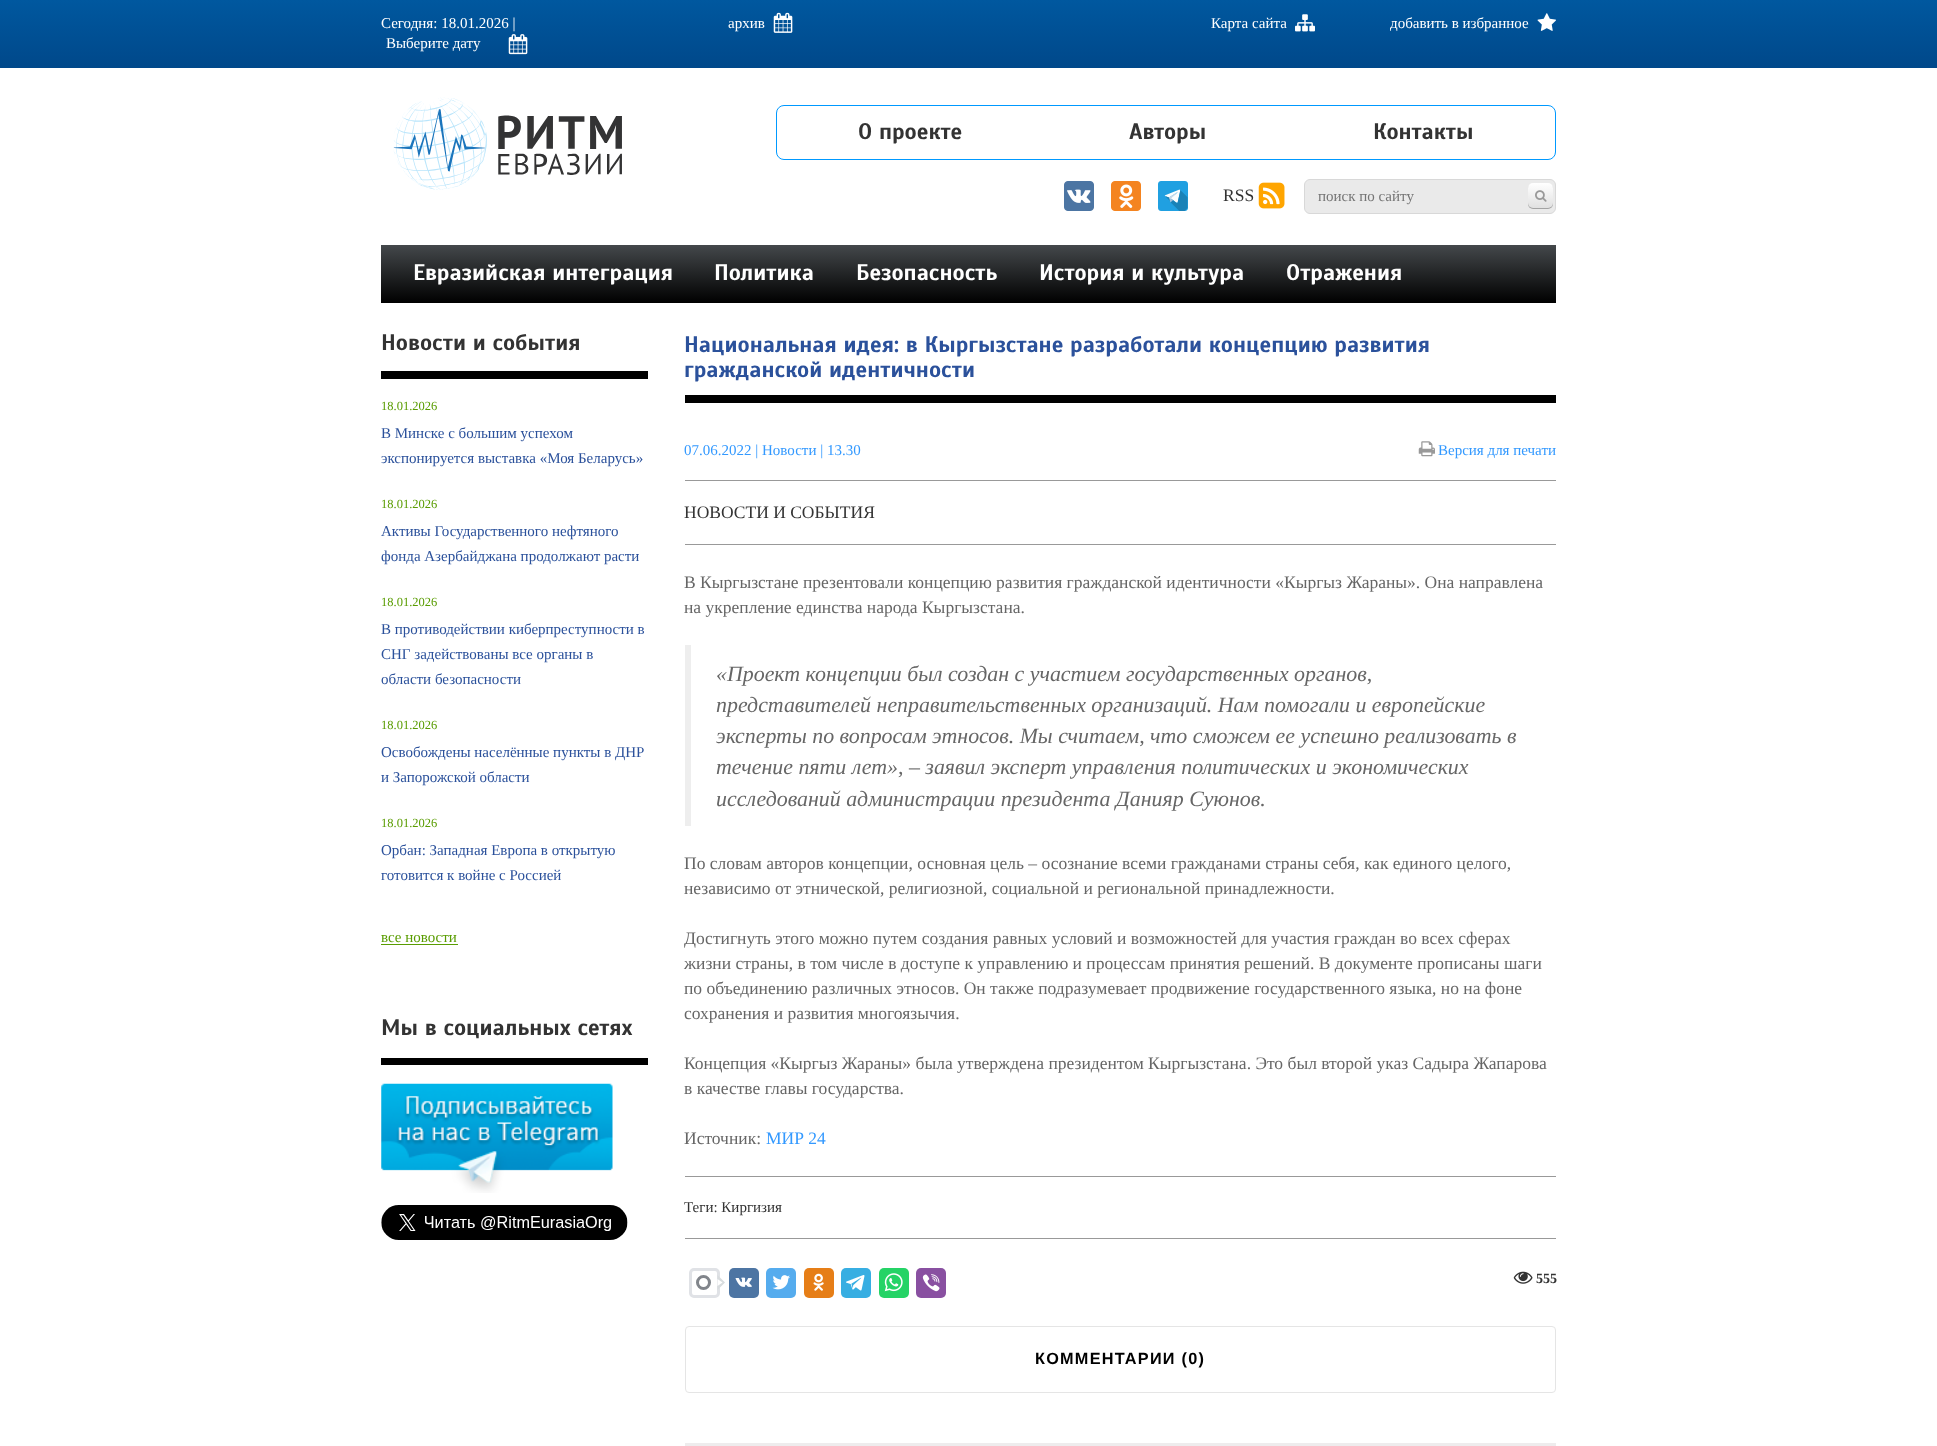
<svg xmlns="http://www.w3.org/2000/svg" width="1937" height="1446">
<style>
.a{font:15px Liberation Serif;fill:#fff}
.b{font:bold 22.5px Scada;fill:#333}
.c{font:17.5px Liberation Serif;fill:#333}
.d{font:15px Liberation Serif;fill:#757575}
.e{font:bold 22.5px Scada;fill:#fff}
.f{font:12.5px Liberation Serif;fill:#599c01}
.g{font:15px Liberation Serif;fill:#2b519b}
.h{font:15px Liberation Serif;fill:#599c01}
.i{font:bold 22.5px Scada;fill:#2b519b}
.j{font:15px Liberation Serif;fill:#39f}
.k{font:17.5px Liberation Serif;fill:#666}
.l{font:italic 21.9px Liberation Serif;fill:#666}
.m{font:17.5px Liberation Serif;fill:#39f}
.n{font:15px Liberation Serif;fill:#333}
.o{font:bold 14px Liberation Serif;fill:#333}
.p{font:bold 16.25px Liberation Sans;letter-spacing:1.25px;fill:#000}
</style>
<defs>
<linearGradient id="g1" gradientUnits="userSpaceOnUse" x1="969" y1="68" x2="969" y2="0"><stop offset="0" stop-color="#00488a"/><stop offset="1" stop-color="#00589f"/></linearGradient>
<linearGradient id="g2" gradientUnits="userSpaceOnUse" x1="1540" y1="208" x2="1540" y2="183"><stop offset="0" stop-color="#e1e1e1"/><stop offset="1" stop-color="#fff"/></linearGradient>
<linearGradient id="g3" gradientUnits="userSpaceOnUse" x1="969" y1="303" x2="969" y2="245"><stop offset="0" stop-color="#000"/><stop offset="1" stop-color="#44484b"/></linearGradient>
</defs>
<rect width="100%" height="100%" fill="#fff"/>
<path fill="url(#g1)" d="M0 0h1937v68H0z"/>
<image href="1.png" x="508" y="34" width="20" height="21"/>
<image href="2.png" x="773" y="12" width="20" height="21"/>
<image href="3.png" x="1295" y="14" width="20" height="18"/>
<image href="4.png" x="1537" y="13" width="19" height="18"/>
<image href="5.png" x="393" y="97" width="229" height="93"/>
<rect fill="none" stroke="#09f" x="776.5" y="105.5" width="779" height="54" rx="7.5"/>
<image href="6.png" x="1064" y="181" width="30" height="30"/>
<image href="7.png" x="1111" y="181" width="30" height="30"/>
<image href="8.png" x="1158" y="181" width="30" height="30"/>
<image href="9.png" x="1258" y="182" width="27" height="27"/>
<rect fill="#eaeaea" stroke="#d8d8d8" x="1304.5" y="179.5" width="251" height="34" rx="5.5"/>
<rect fill="#0101014d" filter="blur(0.5px)" x="1528" y="184" width="25" height="25" rx="5"/>
<rect fill="url(#g2)" x="1528" y="183" width="25" height="25" rx="5"/>
<image href="10.png" x="1535" y="190" width="12" height="12"/>
<path fill="url(#g3)" d="M381 245h1175v58H381z"/>
<path fill="#000" d="M381 371h267v8H381z"/>
<path fill="#599c01" d="M381 944h77v1H381z"/>
<path fill="#000" d="M381 1058h267v7H381z"/>
<image href="11.png" x="381" y="1083" width="232" height="110"/>
<image href="12.png" x="381" y="1205" width="247" height="35"/>
<path fill="#000" d="M685 395h871v8H685z"/>
<path fill="#999" d="M685 480h871v1H685z"/>
<image href="13.png" x="1418" y="441" width="17" height="16"/>
<path fill="#999" d="M685 544h871v1H685z"/>
<path fill="#eee" d="M685 645h6v181H685z"/>
<path fill="#999" d="M685 1176h871v1H685z"/>
<path fill="#999" d="M685 1238h871v1H685z"/>
<rect fill="none" stroke="#e0e2e6" stroke-width="3" x="690.5" y="1269.5" width="28" height="27" rx="3.5"/>
<circle fill="none" stroke="#81858b" stroke-width="3" cx="703.5" cy="1282.5" r="6"/>
<path fill="#d8dcde" d="M717.5 1290v-15l7.5 7.5z"/>
<path fill="#fff" d="M717.5 1286v-7l5 3.5z"/>
<rect fill="#4d75a3" x="729" y="1268" width="30" height="30" rx="5"/>
<image href="14.png" x="735" y="1277" width="17" height="10"/>
<rect fill="#55acee" x="766" y="1268" width="30" height="30" rx="5"/>
<image href="15.png" x="772" y="1275" width="18" height="15"/>
<rect fill="#e67e17" x="804" y="1268" width="30" height="30" rx="5"/>
<image href="16.png" x="813" y="1273" width="11" height="18"/>
<rect fill="#37aee2" x="841" y="1268" width="30" height="30" rx="5"/>
<image href="17.png" x="846" y="1275" width="19" height="16"/>
<rect fill="#25d366" x="879" y="1268" width="30" height="30" rx="5"/>
<image href="18.png" x="884" y="1273" width="19" height="19"/>
<rect fill="#8950a1" x="916" y="1268" width="30" height="30" rx="5"/>
<image href="19.png" x="922" y="1274" width="18" height="18"/>
<image href="20.png" x="1513" y="1271" width="20" height="13"/>
<rect fill="none" stroke="#e5e5e5" x="685.5" y="1326.5" width="870" height="66" rx="3.5"/>
<path fill="#eeeced" d="M685 1443h871v3H685z"/>
<text class="a" x="381" y="28">Сегодня: 18.01.2026 |</text>
<text class="a" x="386" y="48">Выберите дату</text>
<text class="a" x="728" y="28">архив</text>
<text class="a" x="1211" y="28">Карта сайта</text>
<text class="a" x="1390" y="28">добавить в избранное</text>
<text class="b" x="858" y="139">О проекте</text>
<text class="b" x="1129" y="139">Авторы</text>
<text class="b" x="1373" y="139">Контакты</text>
<text class="c" x="1223" y="201">RSS</text>
<text class="d" x="1318" y="201">поиск по сайту</text>
<text class="e" x="413" y="280">Евразийская интеграция</text>
<text class="e" x="714" y="280">Политика</text>
<text class="e" x="856" y="280">Безопасность</text>
<text class="e" x="1039" y="280">История и культура</text>
<text class="e" x="1286" y="280">Отражения</text>
<text class="b" x="381" y="350">Новости и события</text>
<text class="f" x="381" y="410">18.01.2026</text>
<text class="g" x="381" y="438">В Минске с большим успехом</text>
<text class="g" x="381" y="463">экспонируется выставка «Моя Беларусь»</text>
<text class="f" x="381" y="508">18.01.2026</text>
<text class="g" x="381" y="536">Активы Государственного нефтяного</text>
<text class="g" x="381" y="561">фонда Азербайджана продолжают расти</text>
<text class="f" x="381" y="606">18.01.2026</text>
<text class="g" x="381" y="634">В противодействии киберпреступности в</text>
<text class="g" x="381" y="659">СНГ задействованы все органы в</text>
<text class="g" x="381" y="684">области безопасности</text>
<text class="f" x="381" y="729">18.01.2026</text>
<text class="g" x="381" y="757">Освобождены населённые пункты в ДНР</text>
<text class="g" x="381" y="782">и Запорожской области</text>
<text class="f" x="381" y="827">18.01.2026</text>
<text class="g" x="381" y="855">Орбан: Западная Европа в открытую</text>
<text class="g" x="381" y="880">готовится к войне с Россией</text>
<text class="h" x="381" y="942">все новости</text>
<text class="b" x="381" y="1035">Мы в социальных сетях</text>
<text class="i" x="684" y="352">Национальная идея: в Кыргызстане разработали концепцию развития</text>
<text class="i" x="684" y="377">гражданской идентичности</text>
<text class="j" x="684" y="455">07.06.2022 | Новости | 13.30</text>
<text class="j" x="1438" y="455">Версия для печати</text>
<text class="c" x="684" y="518">НОВОСТИ И СОБЫТИЯ</text>
<text class="k" x="684" y="588">В Кыргызстане презентовали концепцию развития гражданской идентичности «Кыргыз Жараны». Она направлена</text>
<text class="k" x="684" y="613">на укрепление единства народа Кыргызстана.</text>
<text class="l" x="716" y="681">«Проект концепции был создан с участием государственных органов,</text>
<text class="l" x="716" y="712">представителей неправительственных организаций. Нам помогали и европейские</text>
<text class="l" x="716" y="743">эксперты по вопросам этносов. Мы считаем, что сможем ее успешно реализовать в</text>
<text class="l" x="716" y="774">течение пяти лет», – заявил эксперт управления политических и экономических</text>
<text class="l" x="716" y="806">исследований администрации президента Данияр Суюнов.</text>
<text class="k" x="684" y="869">По словам авторов концепции, основная цель – осознание всеми гражданами страны себя, как единого целого,</text>
<text class="k" x="684" y="894">независимо от этнической, религиозной, социальной и региональной принадлежности.</text>
<text class="k" x="684" y="944">Достигнуть этого можно путем создания равных условий и возможностей для участия граждан во всех сферах</text>
<text class="k" x="684" y="969">жизни страны, в том числе в доступе к управлению и процессам принятия решений. В документе прописаны шаги</text>
<text class="k" x="684" y="994">по объединению различных этносов. Он также подразумевает продвижение государственного языка, но на фоне</text>
<text class="k" x="684" y="1019">сохранения и развития многоязычия.</text>
<text class="k" x="684" y="1069">Концепция «Кыргыз Жараны» была утверждена президентом Кыргызстана. Это был второй указ Садыра Жапарова</text>
<text class="k" x="684" y="1094">в качестве главы государства.</text>
<text class="k" x="684" y="1144">Источник:</text>
<text class="m" x="766" y="1144">МИР 24</text>
<text class="n" x="684" y="1212">Теги: Киргизия</text>
<text class="o" x="1536" y="1283">555</text>
<text class="p" x="1035" y="1364">КОММЕНТАРИИ (0)</text>
</svg>
